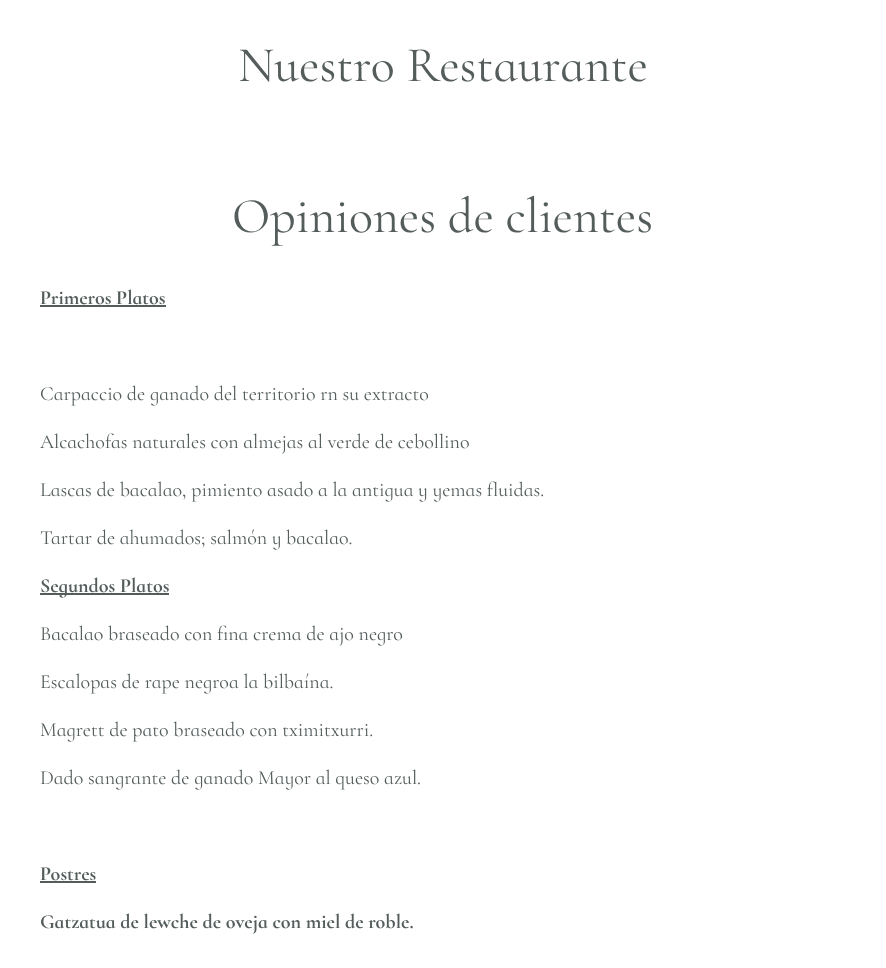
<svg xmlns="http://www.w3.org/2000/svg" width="886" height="968">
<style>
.a{font:50px Cormorant Infant;fill:#545d5c}
.b{font:bold 20px Cormorant Infant;fill:#545d5c}
.c{font:20px Cormorant Infant;fill:#545d5c}
</style>
<rect width="100%" height="100%" fill="#fff"/>
<path fill="#545d5c" d="M40 305h126v2H40z"/>
<path fill="#545d5c" d="M40 593h129v2H40z"/>
<path fill="#545d5c" d="M40 881h56v2H40z"/>
<text class="a" x="238" y="81">Nuestro Restaurante</text>
<text class="a" x="232" y="232">Opiniones de clientes</text>
<text class="b" x="40" y="304">Primeros Platos</text>
<text class="c" x="40" y="400">Carpaccio de ganado del territorio rn su extracto</text>
<text class="c" x="40" y="448">Alcachofas naturales con almejas al verde de cebollino</text>
<text class="c" x="40" y="496">Lascas de bacalao, pimiento asado a la antigua y yemas fluidas.</text>
<text class="c" x="40" y="544">Tartar de ahumados; salmón y bacalao.</text>
<text class="b" x="40" y="592">Segundos Platos</text>
<text class="c" x="40" y="640">Bacalao braseado con fina crema de ajo negro</text>
<text class="c" x="40" y="688">Escalopas de rape negroa la bilbaína.</text>
<text class="c" x="40" y="736">Magrett de pato braseado con tximitxurri.</text>
<text class="c" x="40" y="784">Dado sangrante de ganado Mayor al queso azul.</text>
<text class="b" x="40" y="880">Postres</text>
<text class="b" x="40" y="928">Gatzatua de lewche de oveja con miel de roble.</text>
</svg>
